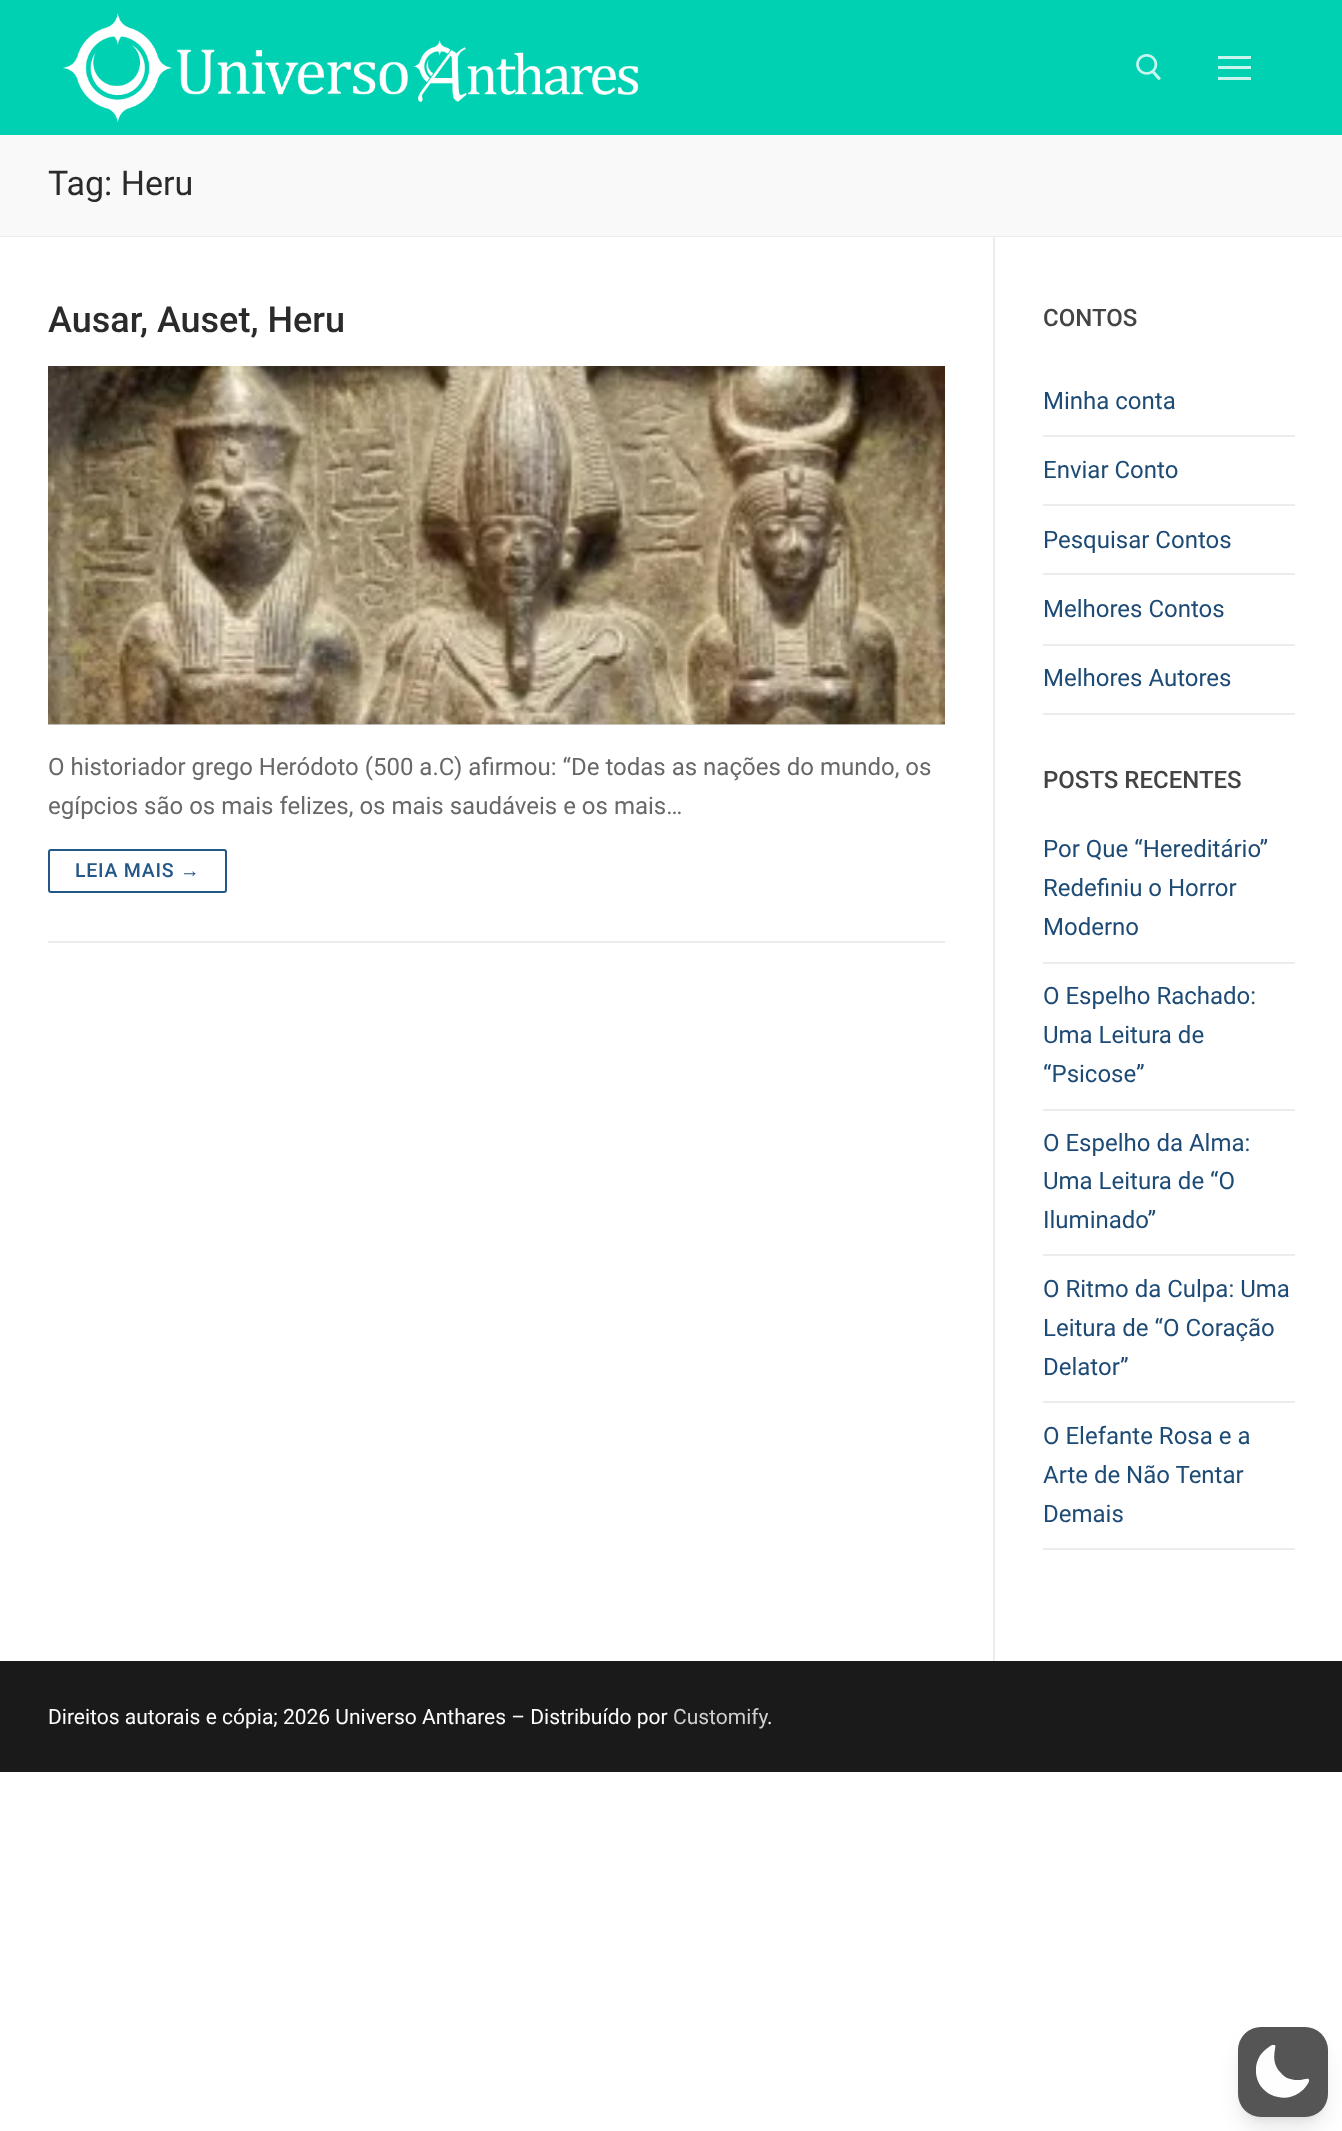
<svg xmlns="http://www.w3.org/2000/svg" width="1342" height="2131">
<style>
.a{font:34px Roboto;fill:#2b2b2b}
.b{font:500 36px Roboto;fill:#2b2b2b}
.c{font:24px Roboto;fill:#686868}
.d{font:500 19.5px Roboto;letter-spacing:0.75px;fill:#235787}
.e{font:19.5px Liberation Sans;letter-spacing:0.75px;fill:#235787}
.f{font:500 24px Roboto;fill:#444}
.g{font:24px Roboto;fill:#1e4b75}
.h{font:21px Roboto;fill:#fdfdfd}
.i{font:21px Roboto;fill:#cfcfcf}
</style>
<defs>
<clipPath id="clip1"><path d="M1256 2045h54v54H1256z"/></clipPath>
</defs>
<rect width="100%" height="100%" fill="#fff"/>
<path fill="#00d1b2" d="M0 0h1342v135H0z"/>
<image href="1.png" x="63" y="13" width="576" height="110"/>
<image href="2.png" x="1136" y="54" width="25" height="27"/>
<path fill="#c9f5ef" d="M1218 66h33v3H1218z"/>
<path fill="#c9f5ef" d="M1218 56h33v3H1218z"/>
<path fill="#c9f5ef" d="M1218 77h33v3H1218z"/>
<path fill="#f9f9f9" d="M0 135h1342v101H0z"/>
<path fill="#eaecee" d="M0 236h1342v1H0z"/>
<path fill="#eaecee" d="M993 237h2v1424H993z"/>
<path fill="#eaecee" d="M48 941h897v2H48z"/>
<path fill="#d5d5d5" d="M48 724h897v1H48z"/>
<image href="3.png" x="48" y="366" width="897" height="359"/>
<rect fill="none" stroke="#235787" stroke-width="2" x="49" y="850" width="177" height="42" rx="2"/>
<path fill="#eaecee" d="M1043 435h252v2H1043z"/>
<path fill="#eaecee" d="M1043 504h252v2H1043z"/>
<path fill="#eaecee" d="M1043 573h252v2H1043z"/>
<path fill="#eaecee" d="M1043 644h252v2H1043z"/>
<path fill="#eaecee" d="M1043 713h252v2H1043z"/>
<path fill="#eaecee" d="M1043 962h252v2H1043z"/>
<path fill="#eaecee" d="M1043 1109h252v2H1043z"/>
<path fill="#eaecee" d="M1043 1254h252v2H1043z"/>
<path fill="#eaecee" d="M1043 1401h252v2H1043z"/>
<path fill="#eaecee" d="M1043 1548h252v2H1043z"/>
<path fill="#1a1a1a" d="M0 1661h1342v111H0z"/>
<rect fill="#0000001a" filter="blur(4.5px)" x="1244" y="2039" width="78" height="78" rx="17"/>
<rect fill="#0000001a" filter="blur(11px)" x="1242" y="2046" width="81" height="81" rx="18"/>
<rect fill="#555" x="1238" y="2027" width="90" height="90" rx="23"/>
<g clip-path="url(#clip1)">
<path fill="#fefefe" fill-rule="evenodd" d="M1275 2045c2 2-6 16 6 28c4 5 10 7 16 7c5 1 17-6 10 5c-2 3-5 6-8 8c-6 4-14 6-21 4c-25-5-30-37-9-50c1-1 4-3 6-2z"/>
</g>
<text class="a" x="48" y="195">Tag: Heru</text>
<text class="b" x="48" y="332">Ausar, Auset, Heru</text>
<text class="c" x="48" y="775">O historiador grego Heródoto (500 a.C) afirmou: “De todas as nações do mundo, os</text>
<text class="c" x="48" y="814">egípcios são os mais felizes, os mais saudáveis e os mais…</text>
<text class="d" x="75" y="877">LEIA MAIS</text>
<text class="e" x="180" y="877">→</text>
<text class="f" x="1043" y="326">CONTOS</text>
<text class="g" x="1043" y="409">Minha conta</text>
<text class="g" x="1043" y="478">Enviar Conto</text>
<text class="g" x="1043" y="548">Pesquisar Contos</text>
<text class="g" x="1043" y="617">Melhores Contos</text>
<text class="g" x="1043" y="686">Melhores Autores</text>
<text class="f" x="1043" y="788">POSTS RECENTES</text>
<text class="g" x="1043" y="857">Por Que “Hereditário”</text>
<text class="g" x="1043" y="896">Redefiniu o Horror</text>
<text class="g" x="1043" y="935">Moderno</text>
<text class="g" x="1043" y="1004">O Espelho Rachado:</text>
<text class="g" x="1043" y="1043">Uma Leitura de</text>
<text class="g" x="1043" y="1082">“Psicose”</text>
<text class="g" x="1043" y="1151">O Espelho da Alma:</text>
<text class="g" x="1043" y="1189">Uma Leitura de “O</text>
<text class="g" x="1043" y="1228">Iluminado”</text>
<text class="g" x="1043" y="1297">O Ritmo da Culpa: Uma</text>
<text class="g" x="1043" y="1336">Leitura de “O Coração</text>
<text class="g" x="1043" y="1375">Delator”</text>
<text class="g" x="1043" y="1444">O Elefante Rosa e a</text>
<text class="g" x="1043" y="1483">Arte de Não Tentar</text>
<text class="g" x="1043" y="1522">Demais</text>
<text class="h" x="48" y="1724">Direitos autorais e cópia; 2026 Universo Anthares – Distribuído por</text>
<text class="i" x="673" y="1724">Customify</text>
<text class="h" x="767" y="1724">.</text>
</svg>
